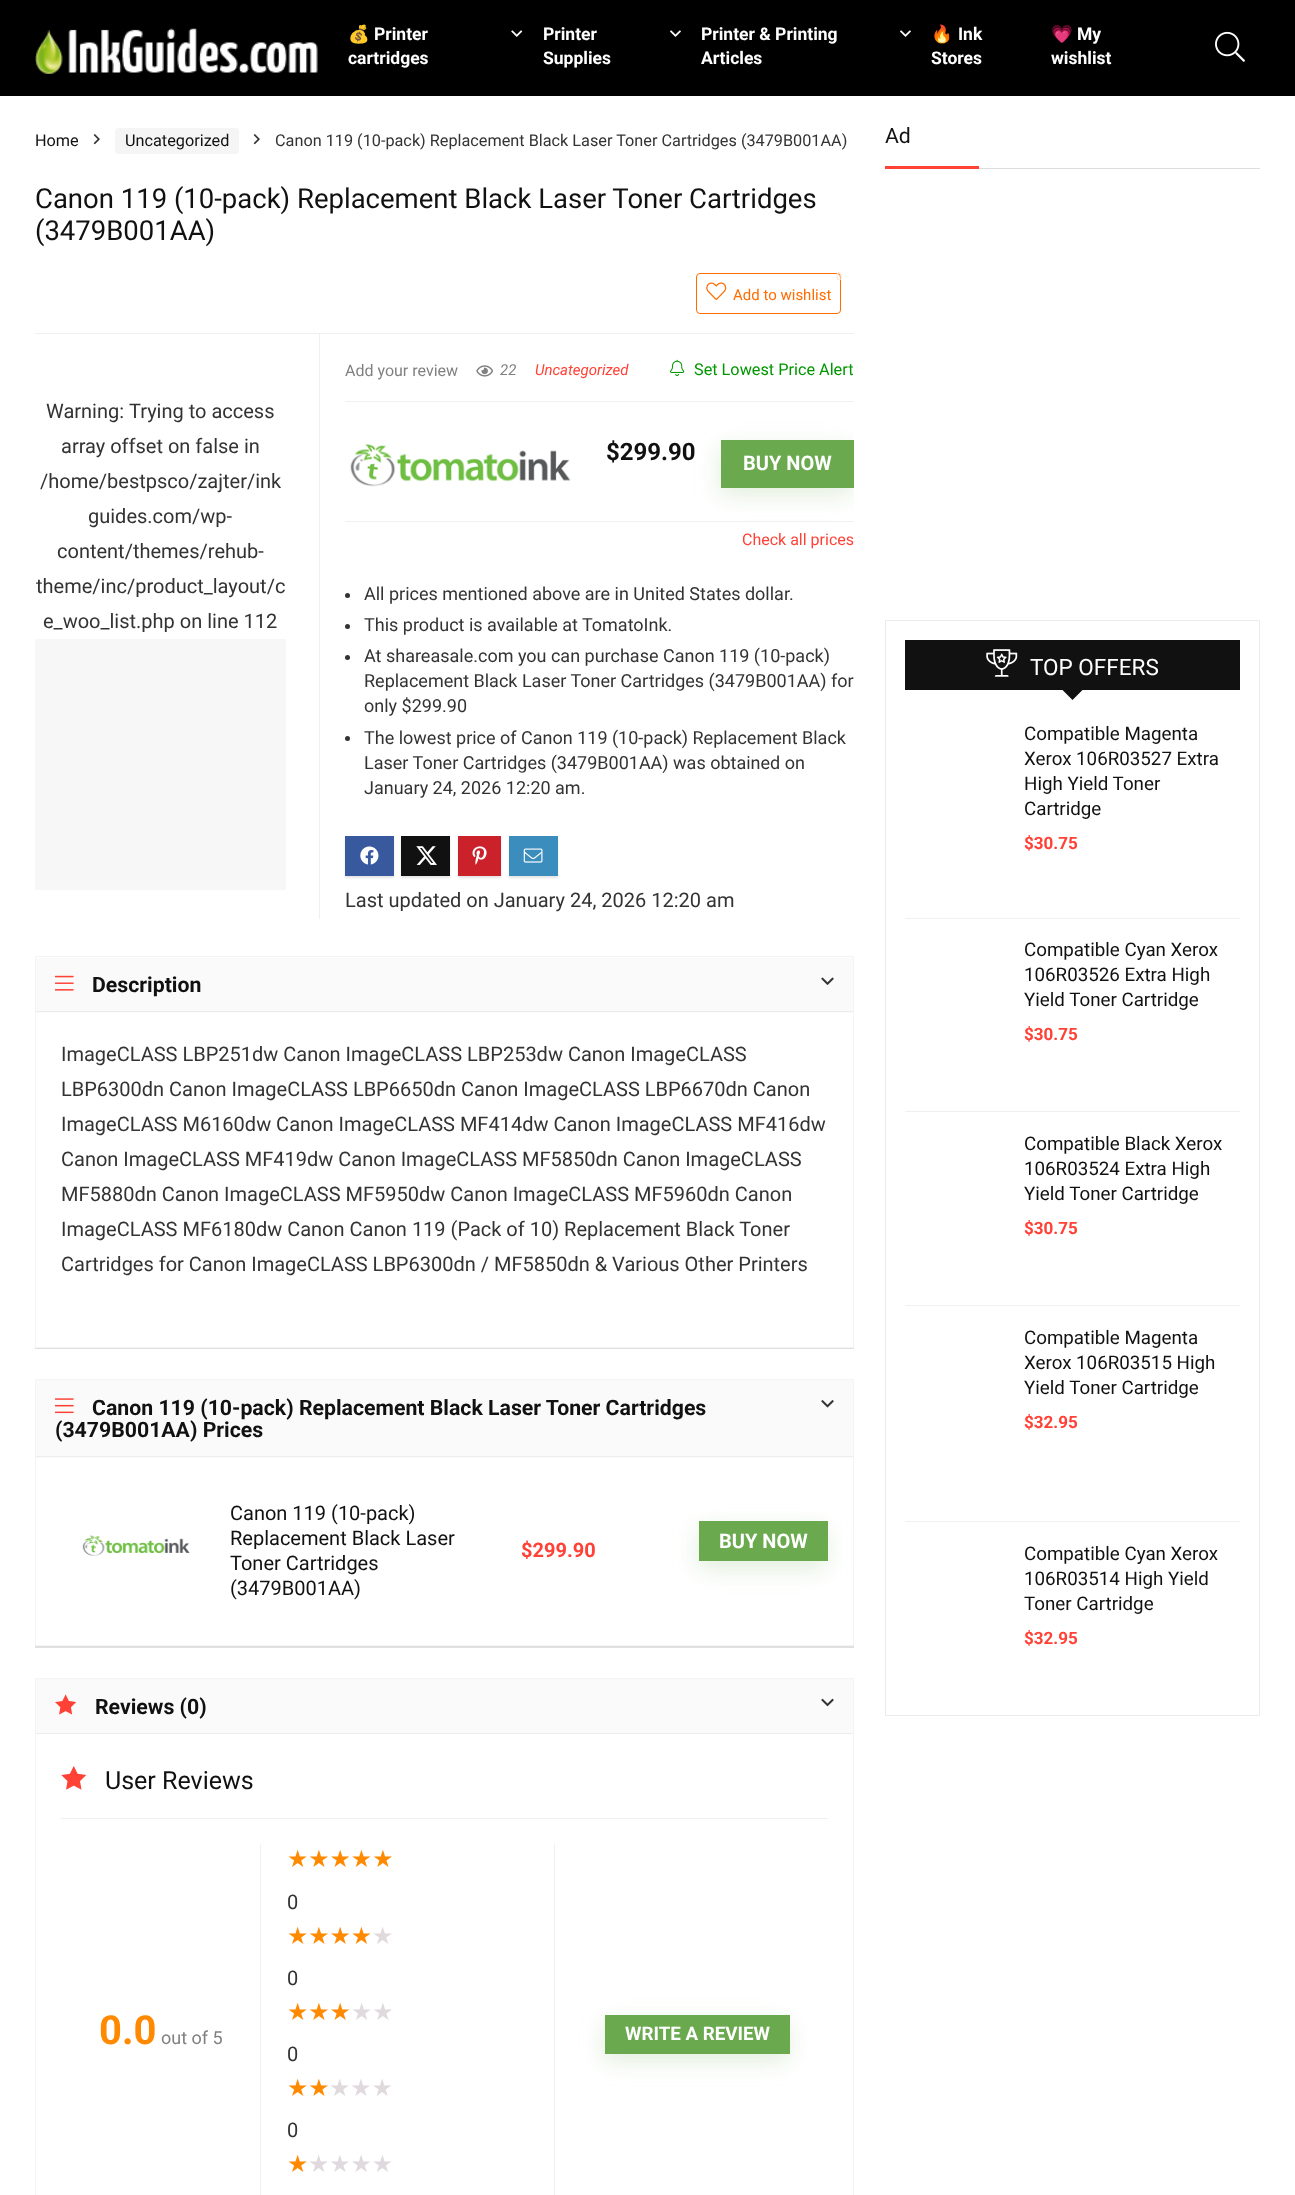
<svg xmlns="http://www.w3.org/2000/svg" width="1295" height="2195">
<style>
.a{font:bold 17.5px Noto Color Emoji;fill:#fff}
.b{font:bold 17.5px Roboto;fill:#fff}
.c{font:16.25px Roboto;fill:#111}
.d{font:16.25px Roboto;fill:#333}
.e{font:27.5px Roboto;fill:#111}
.f{font:11px Roboto;fill:#ffe5d1}
.g{font:15px Roboto;fill:#ff6c00}
.h{font:20px Roboto;fill:#333}
.i{font:16px Roboto;fill:#808080}
.j{font:italic 15px Roboto;fill:#808080}
.k{font:italic 15px Roboto;fill:#ff4136}
.l{font:16.25px Roboto;fill:#009700}
.m{font:bold 24px Roboto;fill:#111}
.n{font:bold 20px Roboto;fill:#fff}
.o{font:16px Roboto;fill:#ff4136}
.p{font:18px Roboto;fill:#333}
.q{font:bold 21.25px Roboto;fill:#111}
.r{font:20px Roboto;fill:#111}
.s{font:bold 20px Roboto;fill:#ff4136}
.t{font:25px Roboto;fill:#111}
.u{font:bold 40px Roboto;fill:#ff8a00}
.v{font:18px Roboto;fill:#808080}
.w{font:23.75px DejaVu Sans;fill:#ff8a00}
.x{font:23.75px DejaVu Sans;fill:#e0dadf}
.y{font:bold 18.75px Roboto;fill:#fff}
.z{font:21.25px Roboto;fill:#111}
.a1{font:22.5px Roboto;fill:#fff}
.b1{font:18.75px Roboto;fill:#111}
.c1{font:bold 17px Roboto;fill:#ff4136}
</style>
<defs>
<clipPath id="clip1"><path d="M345 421h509v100H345z"/></clipPath>
</defs>
<rect width="100%" height="100%" fill="#fff"/>
<path fill="#000" d="M0 0h1295v96H0z"/>
<image href="1.png" x="35" y="28" width="283" height="46"/>
<image href="2.png" x="511" y="30" width="12" height="7"/>
<image href="3.png" x="670" y="30" width="11" height="7"/>
<image href="3.png" x="900" y="30" width="11" height="7"/>
<image href="4.png" x="1215" y="31" width="30" height="31"/>
<image href="5.png" x="93" y="134" width="7" height="11"/>
<rect fill="#f5f5f5" x="115" y="128" width="124" height="26" rx="4"/>
<image href="5.png" x="253" y="134" width="7" height="11"/>
<rect fill="none" stroke="#ff6c00" x="696.5" y="273.5" width="144" height="40" rx="3.5"/>
<image href="6.png" x="706" y="282" width="21" height="18"/>
<path fill="#f0f0f0" d="M35 333h819v1H35z"/>
<path fill="#f7f7f7" d="M35 639h251v251H35z"/>
<path fill="#f0f0f0" d="M319 334h1v585H319z"/>
<image href="7.png" x="476" y="365" width="18" height="12"/>
<image href="8.png" x="670" y="359" width="15" height="17"/>
<path fill="#f0f0f0" d="M345 401h509v1H345z"/>
<path fill="#f0f0f0" d="M345 521h509v1H345z"/>
<image href="9.png" x="350" y="443" width="221" height="44"/>
<g clip-path="url(#clip1)">
<path fill="#6aa94e33" filter="blur(12px)" d="M720 448h133v47H720z"/>
</g>
<path fill="#6aa94e" d="M721 440h133v48H721z"/>
<circle fill="#333" cx="347.5" cy="595.5" r="2.5"/>
<circle fill="#333" cx="347.5" cy="626.5" r="2.5"/>
<circle fill="#333" cx="347.5" cy="657.5" r="2.5"/>
<circle fill="#333" cx="347.5" cy="738.5" r="2.5"/>
<path fill="#e4e4e4" filter="blur(1px)" d="M345 838h49v40H345z"/>
<path fill="#39599f" d="M345 836h49v40H345z"/>
<image href="10.png" x="360" y="846" width="19" height="19"/>
<path fill="#e4e4e4" filter="blur(1px)" d="M401 838h49v40H401z"/>
<path fill="#111" d="M401 836h49v40H401z"/>
<image href="11.png" x="416" y="846" width="21" height="19"/>
<path fill="#e4e4e4" filter="blur(1px)" d="M458 838h43v40H458z"/>
<path fill="#ca212a" d="M458 836h43v40H458z"/>
<image href="12.png" x="472" y="846" width="15" height="19"/>
<path fill="#e4e4e4" filter="blur(1px)" d="M509 838h49v40H509z"/>
<path fill="#3b8dbd" d="M509 836h49v40H509z"/>
<image href="13.png" x="523" y="848" width="20" height="15"/>
<path fill="#0000001f" filter="blur(0.5px)" d="M35 958h819v391H35z"/>
<path fill="#fff" stroke="#f4f4f4" d="M35.5 956.5h818v391H35.5z"/>
<path fill="#fafafa" d="M36 958h817v55H36z"/>
<path fill="#ededed" d="M36 1011h817v1H36z"/>
<image href="14.png" x="55" y="975" width="19" height="16"/>
<image href="15.png" x="821" y="977" width="13" height="8"/>
<path fill="#0000001f" filter="blur(0.5px)" d="M35 1380h819v268H35z"/>
<path fill="#fff" d="M36 1458h817v187H36z"/>
<path fill="none" stroke="#f4f4f4" d="M35.5 1379.5h818v266H35.5z"/>
<path fill="#fafafa" d="M36 1380h817v78H36z"/>
<path fill="#ededed" d="M36 1456h817v1H36z"/>
<image href="16.png" x="55" y="1398" width="19" height="16"/>
<image href="17.png" x="821" y="1400" width="13" height="8"/>
<image href="18.png" x="82" y="1535" width="108" height="21"/>
<path fill="#6aa94e33" filter="blur(12px)" d="M698 1529h128v40H698z"/>
<path fill="#6aa94e" d="M699 1521h129v40H699z"/>
<path fill="none" stroke="#f4f4f4" d="M35.5 1678.5h818v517H35.5z"/>
<path fill="#fafafa" d="M36 1679h817v54H36z"/>
<path fill="#ededed" d="M36 1733h817v1H36z"/>
<image href="19.png" x="55" y="1694" width="22" height="21"/>
<image href="20.png" x="821" y="1698" width="13" height="9"/>
<image href="21.png" x="61" y="1766" width="26" height="24"/>
<path fill="#f0f0f0" d="M61 1818h767v1H61z"/>
<path fill="#f0f0f0" d="M554 1844h1v351H554z"/>
<path fill="#f0f0f0" d="M260 1844h1v351H260z"/>
<path fill="#6aa94e33" filter="blur(12px)" d="M604 2023h185v38H604z"/>
<path fill="#6aa94e" d="M605 2015h185v39H605z"/>
<path fill="#ddd" d="M979 168h281v1H979z"/>
<path fill="#ff4136" d="M885 166h94v3H885z"/>
<path fill="none" stroke="#ebebeb" d="M885.5 620.5h374v1095H885.5z"/>
<path fill="#111" d="M905 640h335v50H905z"/>
<image href="22.png" x="986" y="649" width="32" height="28"/>
<path fill="#111" d="M1062.5 690h20l-10 10z"/>
<path fill="#f0f0f0" d="M905 918h335v1H905z"/>
<path fill="#f0f0f0" d="M905 1111h335v1H905z"/>
<path fill="#f0f0f0" d="M905 1305h335v1H905z"/>
<path fill="#f0f0f0" d="M905 1521h335v1H905z"/>
<text class="a" x="348" y="40">💰</text>
<text class="b" x="374" y="40">Printer</text>
<text class="b" x="348" y="64">cartridges</text>
<text class="b" x="543" y="40">Printer</text>
<text class="b" x="543" y="64">Supplies</text>
<text class="b" x="701" y="40">Printer &amp; Printing</text>
<text class="b" x="701" y="64">Articles</text>
<text class="a" x="931" y="40">🔥</text>
<text class="b" x="958" y="40">Ink</text>
<text class="b" x="931" y="64">Stores</text>
<text class="a" x="1051" y="40">💗</text>
<text class="b" x="1077" y="40">My</text>
<text class="b" x="1051" y="64">wishlist</text>
<text class="c" x="35" y="146">Home</text>
<text class="c" x="125" y="146">Uncategorized</text>
<text class="d" x="275" y="146">Canon 119 (10-pack) Replacement Black Laser Toner Cartridges (3479B001AA)</text>
<text class="e" x="35" y="208">Canon 119 (10-pack) Replacement Black Laser Toner Cartridges</text>
<text class="e" x="35" y="240">(3479B001AA)</text>
<text class="f" x="836" y="280">0</text>
<text class="g" x="733" y="300">Add to wishlist</text>
<text class="h" x="46" y="418">Warning:</text>
<text class="h" x="129" y="418">Trying to access</text>
<text class="h" x="61" y="453">array offset on false in</text>
<text class="h" x="40" y="488">/home/bestpsco/zajter/ink</text>
<text class="h" x="88" y="523">guides.com/wp-</text>
<text class="h" x="57" y="558">content/themes/rehub-</text>
<text class="h" x="36" y="593">theme/inc/product_layout/c</text>
<text class="h" x="43" y="628">e_woo_list.php on line 112</text>
<text class="i" x="345" y="376">Add your review</text>
<text class="j" x="500" y="375">22</text>
<text class="k" x="535" y="375">Uncategorized</text>
<text class="l" x="694" y="375">Set Lowest Price Alert</text>
<text class="m" x="606" y="460">$299.90</text>
<text class="n" x="743" y="470">BUY NOW</text>
<text class="o" x="742" y="545">Check all prices</text>
<text class="p" x="364" y="600">All prices mentioned above are in United States dollar.</text>
<text class="p" x="364" y="631">This product is available at TomatoInk.</text>
<text class="p" x="364" y="662">At shareasale.com you can purchase Canon 119 (10-pack)</text>
<text class="p" x="364" y="687">Replacement Black Laser Toner Cartridges (3479B001AA) for</text>
<text class="p" x="364" y="712">only $299.90</text>
<text class="p" x="364" y="744">The lowest price of Canon 119 (10-pack) Replacement Black</text>
<text class="p" x="364" y="769">Laser Toner Cartridges (3479B001AA) was obtained on</text>
<text class="p" x="364" y="794">January 24, 2026 12:20 am.</text>
<text class="h" x="345" y="907">Last updated on January 24, 2026 12:20 am</text>
<text class="q" x="92" y="992">Description</text>
<text class="h" x="61" y="1061">ImageCLASS LBP251dw Canon ImageCLASS LBP253dw Canon ImageCLASS</text>
<text class="h" x="61" y="1096">LBP6300dn Canon ImageCLASS LBP6650dn Canon ImageCLASS LBP6670dn Canon</text>
<text class="h" x="61" y="1131">ImageCLASS M6160dw Canon ImageCLASS MF414dw Canon ImageCLASS MF416dw</text>
<text class="h" x="61" y="1166">Canon ImageCLASS MF419dw Canon ImageCLASS MF5850dn Canon ImageCLASS</text>
<text class="h" x="61" y="1201">MF5880dn Canon ImageCLASS MF5950dw Canon ImageCLASS MF5960dn Canon</text>
<text class="h" x="61" y="1236">ImageCLASS MF6180dw Canon Canon 119 (Pack of 10) Replacement Black Toner</text>
<text class="h" x="61" y="1271">Cartridges for Canon ImageCLASS LBP6300dn / MF5850dn &amp; Various Other Printers</text>
<text class="q" x="92" y="1415">Canon 119 (10-pack) Replacement Black Laser Toner Cartridges</text>
<text class="q" x="55" y="1437">(3479B001AA) Prices</text>
<text class="r" x="230" y="1520">Canon 119 (10-pack)</text>
<text class="r" x="230" y="1545">Replacement Black Laser</text>
<text class="r" x="230" y="1570">Toner Cartridges</text>
<text class="r" x="230" y="1595">(3479B001AA)</text>
<text class="s" x="521" y="1557">$299.90</text>
<text class="n" x="719" y="1548">BUY NOW</text>
<text class="q" x="95" y="1714">Reviews (0)</text>
<text class="t" x="105" y="1789">User Reviews</text>
<text class="u" x="99" y="2044">0.0</text>
<text class="v" x="161" y="2044">out of 5</text>
<text class="w" x="287" y="1867">★★★★★</text>
<text class="h" x="287" y="1909">0</text>
<text class="w" x="287" y="1944">★★★★</text>
<text class="x" x="372" y="1944">★</text>
<text class="h" x="287" y="1985">0</text>
<text class="w" x="287" y="2020">★★★</text>
<text class="x" x="351" y="2020">★★</text>
<text class="h" x="287" y="2061">0</text>
<text class="w" x="287" y="2096">★★</text>
<text class="x" x="329" y="2096">★★★</text>
<text class="h" x="287" y="2137">0</text>
<text class="w" x="287" y="2172">★</text>
<text class="x" x="308" y="2172">★★★★</text>
<text class="y" x="625" y="2040">WRITE A REVIEW</text>
<text class="z" x="885" y="143">Ad</text>
<text class="a1" x="1030" y="675">TOP OFFERS</text>
<text class="b1" x="1024" y="740">Compatible Magenta</text>
<text class="b1" x="1024" y="765">Xerox 106R03527 Extra</text>
<text class="b1" x="1024" y="790">High Yield Toner</text>
<text class="b1" x="1024" y="815">Cartridge</text>
<text class="c1" x="1024" y="849">$30.75</text>
<text class="b1" x="1024" y="956">Compatible Cyan Xerox</text>
<text class="b1" x="1024" y="981">106R03526 Extra High</text>
<text class="b1" x="1024" y="1006">Yield Toner Cartridge</text>
<text class="c1" x="1024" y="1040">$30.75</text>
<text class="b1" x="1024" y="1150">Compatible Black Xerox</text>
<text class="b1" x="1024" y="1175">106R03524 Extra High</text>
<text class="b1" x="1024" y="1200">Yield Toner Cartridge</text>
<text class="c1" x="1024" y="1234">$30.75</text>
<text class="b1" x="1024" y="1344">Compatible Magenta</text>
<text class="b1" x="1024" y="1369">Xerox 106R03515 High</text>
<text class="b1" x="1024" y="1394">Yield Toner Cartridge</text>
<text class="c1" x="1024" y="1428">$32.95</text>
<text class="b1" x="1024" y="1560">Compatible Cyan Xerox</text>
<text class="b1" x="1024" y="1585">106R03514 High Yield</text>
<text class="b1" x="1024" y="1610">Toner Cartridge</text>
<text class="c1" x="1024" y="1644">$32.95</text>
</svg>
